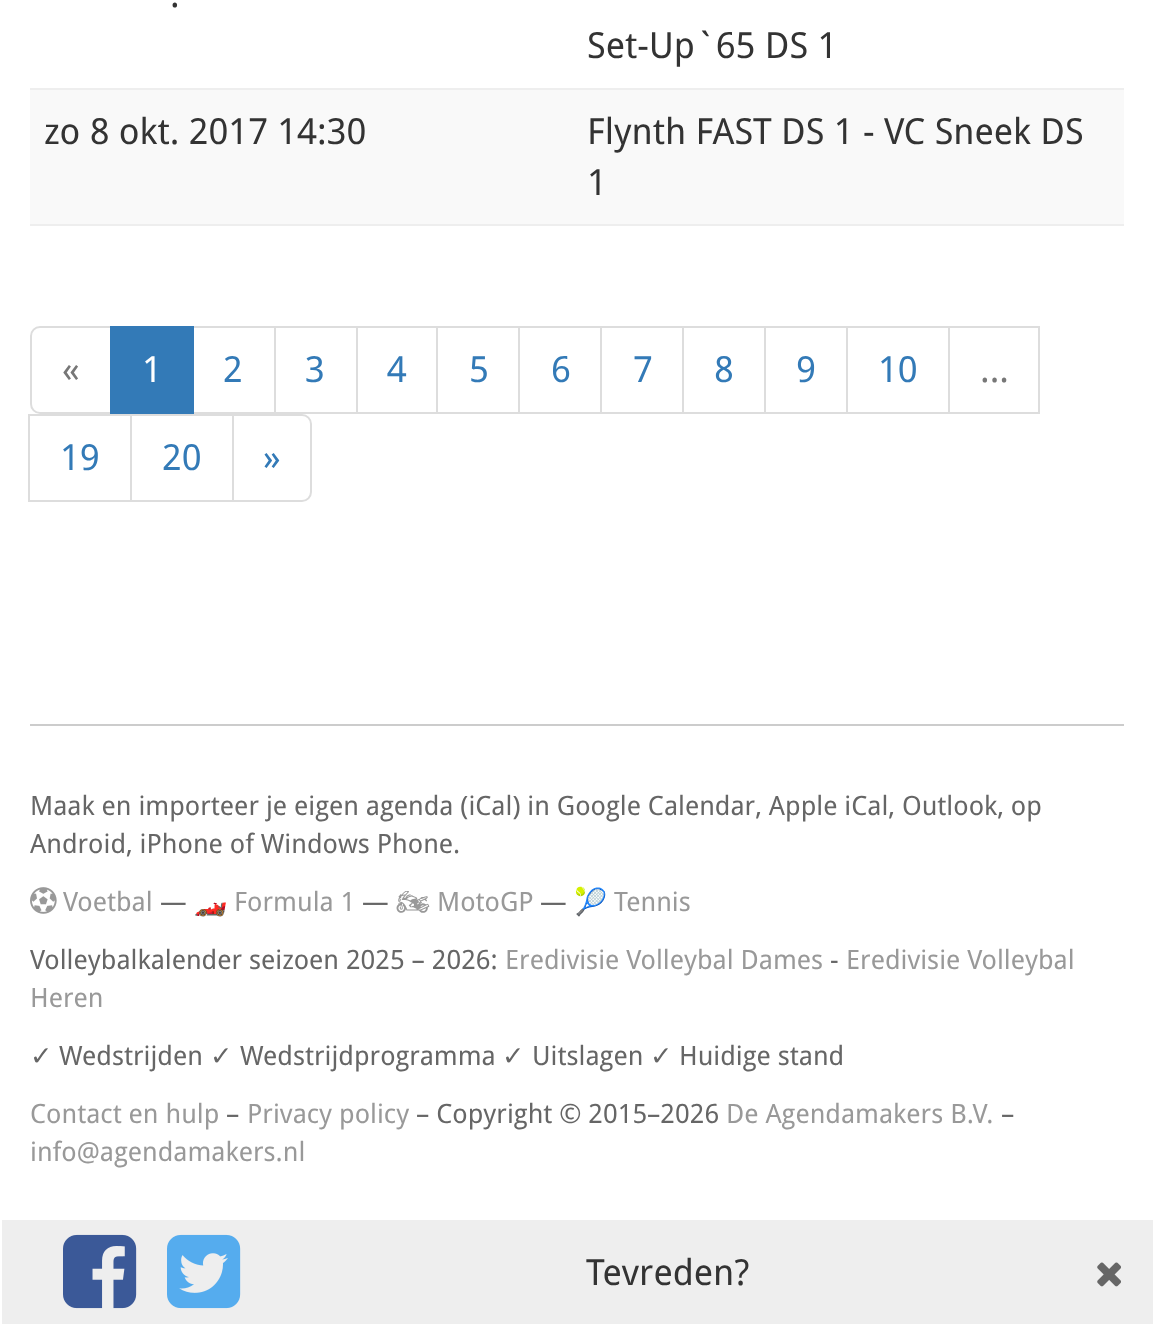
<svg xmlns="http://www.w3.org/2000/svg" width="1153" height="1324">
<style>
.a{font:36px Droid Sans;fill:#333}
.b{font:36px Droid Sans;fill:#777}
.c{font:36px Droid Sans;fill:#fff}
.d{font:36px Droid Sans;fill:#337ab7}
.e{font:26.65px Droid Sans;fill:#666}
.f{font:26.65px Droid Sans;fill:#999}
.g{font:26.65px Noto Color Emoji;fill:#999}
.h{font:26.65px Noto Emoji;fill:#999}
.i{font:26.65px DejaVu Sans;fill:#666}
</style>
<rect width="100%" height="100%" fill="#fff"/>
<path fill="#eee" d="M30 88h1094v2H30z"/>
<path fill="#f9f9f9" d="M30 90h1094v134H30z"/>
<path fill="#eee" d="M30 224h1094v2H30z"/>
<path fill="none" stroke="#ddd" stroke-width="2" d="M40 327h71v86h-71c-5 0-9-4-9-9v-68c0-5 4-9 9-9z"/>
<path fill="none" stroke="#ddd" stroke-width="2" d="M193 327h82v86H193z"/>
<path fill="#337ab7" d="M110 326h84v88H110z"/>
<path fill="none" stroke="#ddd" stroke-width="2" d="M275 327h82v86H275z"/>
<path fill="none" stroke="#ddd" stroke-width="2" d="M357 327h80v86H357z"/>
<path fill="none" stroke="#ddd" stroke-width="2" d="M437 327h82v86H437z"/>
<path fill="none" stroke="#ddd" stroke-width="2" d="M519 327h82v86H519z"/>
<path fill="none" stroke="#ddd" stroke-width="2" d="M601 327h82v86H601z"/>
<path fill="none" stroke="#ddd" stroke-width="2" d="M683 327h82v86H683z"/>
<path fill="none" stroke="#ddd" stroke-width="2" d="M765 327h82v86H765z"/>
<path fill="none" stroke="#ddd" stroke-width="2" d="M847 327h102v86H847z"/>
<path fill="none" stroke="#ddd" stroke-width="2" d="M949 327h90v86H949z"/>
<path fill="none" stroke="#ddd" stroke-width="2" d="M29 415h102v86H29z"/>
<path fill="none" stroke="#ddd" stroke-width="2" d="M131 415h102v86H131z"/>
<path fill="#fff" stroke="#ddd" stroke-width="2" d="M233 415h69c5 0 9 4 9 9v68c0 5-4 9-9 9h-69z"/>
<path fill="#ccc" d="M30 724h1094v2H30z"/>
<image href="1.png" x="30" y="887" width="27" height="27"/>
<path fill="#eee" d="M2 1220h1151v104H2z"/>
<image href="2.png" x="63" y="1234" width="74" height="75"/>
<image href="3.png" x="167" y="1234" width="74" height="75"/>
<image href="4.png" x="1097" y="1262" width="24" height="25"/>
<text class="a" x="170" y="7">.</text>
<text class="a" x="587" y="58">Set-Up`65 DS 1</text>
<text class="a" x="44" y="144">zo 8 okt. 2017 14:30</text>
<text class="a" x="587" y="144">Flynth FAST DS 1 - VC Sneek DS</text>
<text class="a" x="587" y="195">1</text>
<text class="b" x="62" y="382">«</text>
<text class="c" x="142" y="382">1</text>
<text class="d" x="223" y="382">2</text>
<text class="d" x="305" y="382">3</text>
<text class="d" x="387" y="382">4</text>
<text class="d" x="469" y="382">5</text>
<text class="d" x="551" y="382">6</text>
<text class="d" x="633" y="382">7</text>
<text class="d" x="714" y="382">8</text>
<text class="d" x="796" y="382">9</text>
<text class="d" x="878" y="382">10</text>
<text class="b" x="980" y="382">...</text>
<text class="d" x="60" y="470">19</text>
<text class="d" x="162" y="470">20</text>
<text class="d" x="263" y="470">»</text>
<text class="e" x="30" y="815">Maak en importeer je eigen agenda (iCal) in Google Calendar, Apple iCal, Outlook, op</text>
<text class="e" x="30" y="853">Android, iPhone of Windows Phone.</text>
<text class="f" x="63" y="911">Voetbal</text>
<text class="e" x="160" y="911">—</text>
<text class="g" x="194" y="911">🏎️</text>
<text class="f" x="234" y="911">Formula 1</text>
<text class="e" x="362" y="911">—</text>
<text class="h" x="396" y="911">🏍</text>
<text class="f" x="437" y="911">MotoGP</text>
<text class="e" x="540" y="911">—</text>
<text class="g" x="574" y="911">🎾</text>
<text class="f" x="614" y="911">Tennis</text>
<text class="e" x="30" y="969">Volleybalkalender seizoen 2025 – 2026:</text>
<text class="f" x="505" y="969">Eredivisie Volleybal Dames</text>
<text class="e" x="830" y="969">-</text>
<text class="f" x="846" y="969">Eredivisie Volleybal</text>
<text class="f" x="30" y="1007">Heren</text>
<text class="i" x="30" y="1065">✓</text>
<text class="e" x="59" y="1065">Wedstrijden</text>
<text class="i" x="210" y="1065">✓</text>
<text class="e" x="240" y="1065">Wedstrijdprogramma</text>
<text class="i" x="502" y="1065">✓</text>
<text class="e" x="532" y="1065">Uitslagen</text>
<text class="i" x="650" y="1065">✓</text>
<text class="e" x="679" y="1065">Huidige stand</text>
<text class="f" x="30" y="1123">Contact en hulp</text>
<text class="e" x="226" y="1123">–</text>
<text class="f" x="247" y="1123">Privacy policy</text>
<text class="e" x="416" y="1123">– Copyright © 2015–2026</text>
<text class="f" x="726" y="1123">De Agendamakers B.V.</text>
<text class="e" x="1001" y="1123">–</text>
<text class="f" x="30" y="1161">info@agendamakers.nl</text>
<text class="a" x="586" y="1285">Tevreden?</text>
</svg>
